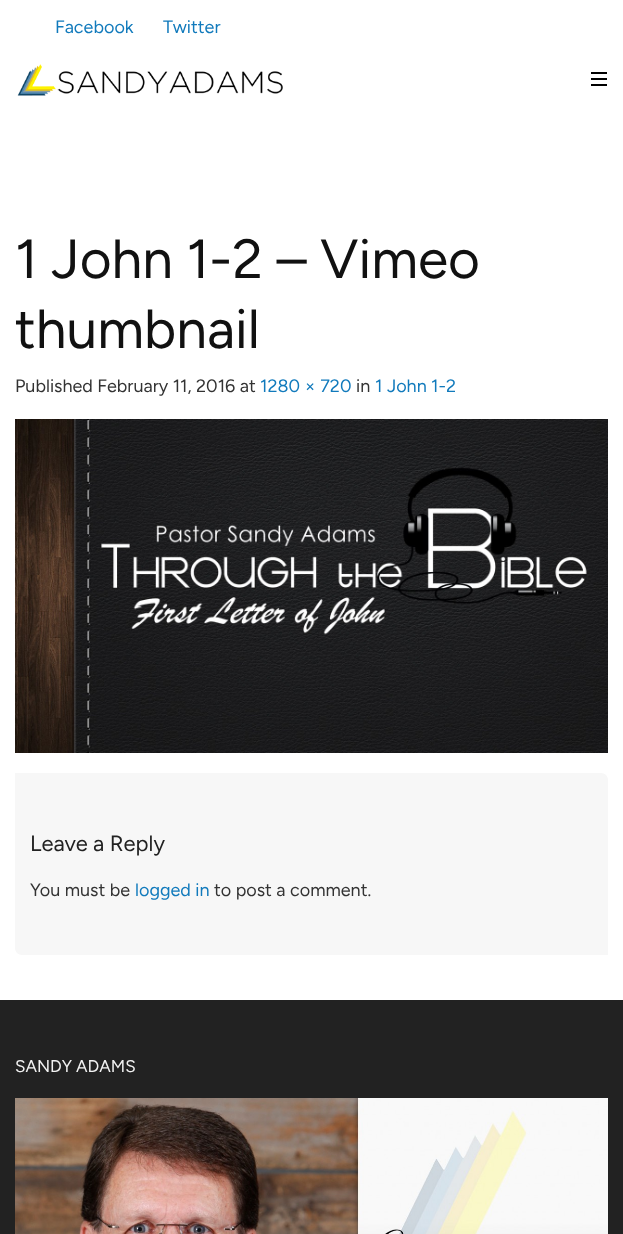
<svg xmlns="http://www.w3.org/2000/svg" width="623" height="1234">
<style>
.a{font:18px Figtree;fill:#117abc}
.b{font:55px Figtree;fill:#111}
.c{font:18px Figtree;fill:#333}
.d{font:22px Figtree;fill:#222}
.e{font:17px Figtree;fill:#f2f2f2}
</style>
<rect width="100%" height="100%" fill="#fff"/>
<image href="1.png" x="17" y="64" width="266" height="32"/>
<path fill="#000" d="M591 72h16v2H591z"/>
<path fill="#000" d="M591 78h16v2H591z"/>
<path fill="#000" d="M591 84h16v2H591z"/>
<image href="2.png" x="15" y="419" width="593" height="334"/>
<path fill="#f7f7f7" d="M15 773h586c4 0 7 3 7 7v175h-586c-4 0-7-3-7-7z"/>
<path fill="#222" d="M0 1000h623v234H0z"/>
<image href="3.png" x="15" y="1098" width="593" height="136"/>
<text class="a" x="55" y="33">Facebook</text>
<text class="a" x="163" y="33">Twitter</text>
<text class="b" x="15" y="278">1 John 1-2 – Vimeo</text>
<text class="b" x="15" y="348">thumbnail</text>
<text class="c" x="15" y="392">Published February 11, 2016 at</text>
<text class="a" x="260" y="392">1280 × 720</text>
<text class="c" x="356" y="392">in</text>
<text class="a" x="375" y="392">1 John 1-2</text>
<text class="d" x="30" y="851">Leave a Reply</text>
<text class="c" x="30" y="896">You must be</text>
<text class="a" x="135" y="896">logged in</text>
<text class="c" x="214" y="896">to post a comment.</text>
<text class="e" x="15" y="1072">SANDY ADAMS</text>
</svg>
